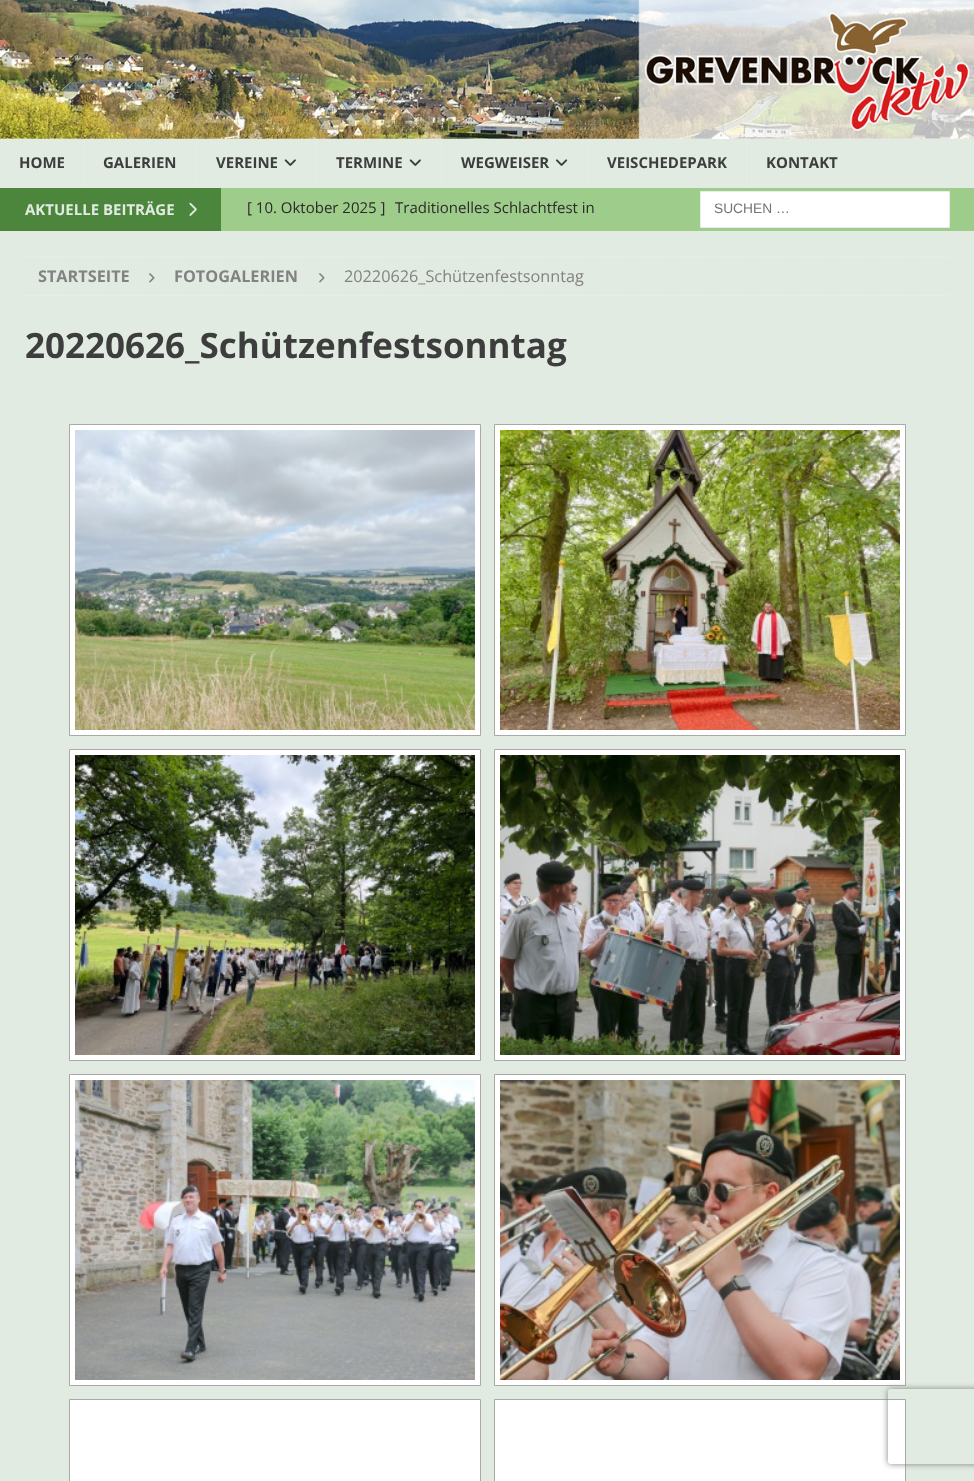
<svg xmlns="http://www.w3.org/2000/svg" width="974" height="1481">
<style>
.a{font:bold 15px Open Sans;fill:#3d3d3d}
.b{font:bold 15px Open Sans;fill:#e2ebe2}
.c{font:15px Open Sans;fill:#2a2a2a}
.d{font:13.75px Liberation Sans;fill:#757575}
.e{font:bold 16.25px Open Sans;fill:#828282}
.f{font:16.25px Open Sans;fill:#828282}
.g{font:bold 35px Open Sans;fill:#3d3d3d}
</style>
<defs>
<clipPath id="clip1"><path d="M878 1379h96v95h-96zm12.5 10h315c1.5 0 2.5 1 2.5 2.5v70c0 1.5-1 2.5-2.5 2.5h-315c-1.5 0-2.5-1-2.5-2.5v-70c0-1.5 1-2.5 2.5-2.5z" clip-rule="evenodd"/></clipPath>
</defs>
<rect width="100%" height="100%" fill="#fff"/>
<image href="1.png" x="0" y="0" width="974" height="139"/>
<path fill="#e2ebe2" d="M0 139h974v49H0z"/>
<path fill="#e5ede5" d="M84 139h1v49H84z"/>
<path fill="#e5ede5" d="M196 139h1v49H196z"/>
<image href="2.png" x="284" y="159" width="12" height="7"/>
<path fill="#e5ede5" d="M316 139h1v49H316z"/>
<image href="2.png" x="409" y="159" width="12" height="7"/>
<path fill="#e5ede5" d="M441 139h1v49H441z"/>
<image href="3.png" x="556" y="159" width="12" height="7"/>
<path fill="#e5ede5" d="M588 139h1v49H588z"/>
<path fill="#e5ede5" d="M746 139h1v49H746z"/>
<path fill="#9ecc8a" d="M221 188h753v43H221z"/>
<path fill="#4c863d" d="M0 188h221v43H0z"/>
<image href="4.png" x="189" y="202" width="8" height="14"/>
<path fill="#fff" stroke="#ebebeb" d="M700.5 191.5h249v36H700.5z"/>
<path fill="#e2ebe2" d="M0 231h974v1250H0z"/>
<path fill="none" stroke="#ebf1eb" stroke-width="1.2" stroke-dasharray="1.25 1.25" d="M25 257h925"/>
<path fill="none" stroke="#ebf1eb" stroke-width="1.2" stroke-dasharray="1.25 1.25" d="M25 295.5h925"/>
<image href="5.png" x="149" y="273" width="6" height="10"/>
<image href="5.png" x="319" y="273" width="6" height="10"/>
<path fill="#fff" stroke="#a9a9a9" d="M69.5 424.5h411v311H69.5z"/>
<image href="6.png" x="75" y="430" width="400" height="300"/>
<path fill="#fff" stroke="#a9a9a9" d="M494.5 424.5h411v311H494.5z"/>
<image href="7.png" x="500" y="430" width="400" height="300"/>
<path fill="#fff" stroke="#a9a9a9" d="M69.5 749.5h411v311H69.5z"/>
<image href="8.png" x="75" y="755" width="400" height="300"/>
<path fill="#fff" stroke="#a9a9a9" d="M494.5 749.5h411v311H494.5z"/>
<image href="9.png" x="500" y="755" width="400" height="300"/>
<path fill="#fff" stroke="#a9a9a9" d="M69.5 1074.5h411v311H69.5z"/>
<image href="10.png" x="75" y="1080" width="400" height="300"/>
<path fill="#fff" stroke="#a9a9a9" d="M494.5 1074.5h411v311H494.5z"/>
<image href="11.png" x="500" y="1080" width="400" height="300"/>
<path fill="#fff" stroke="#a9a9a9" d="M69.5 1399.5h411v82H69.5z"/>
<path fill="#fff" stroke="#a9a9a9" d="M494.5 1399.5h411v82H494.5z"/>
<g clip-path="url(#clip1)">
<rect fill="#808080" filter="blur(3px)" x="888" y="1389" width="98" height="75" rx="2.5"/>
</g>
<text class="a" x="19" y="168">HOME</text>
<text class="a" x="103" y="168">GALERIEN</text>
<text class="a" x="216" y="168">VEREINE</text>
<text class="a" x="336" y="168">TERMINE</text>
<text class="a" x="461" y="168">WEGWEISER</text>
<text class="a" x="607" y="168">VEISCHEDEPARK</text>
<text class="a" x="766" y="168">KONTAKT</text>
<text class="b" x="25" y="215">AKTUELLE BEITRÄGE</text>
<text class="c" x="247" y="213">[ 10. Oktober 2025 ]</text>
<text class="c" x="395" y="213">Traditionelles Schlachtfest in</text>
<text class="d" x="714" y="213">SUCHEN …</text>
<text class="e" x="38" y="282">STARTSEITE</text>
<text class="e" x="174" y="282">FOTOGALERIEN</text>
<text class="f" x="344" y="282">20220626_Schützenfestsonntag</text>
<text class="g" x="25" y="358">20220626_Schützenfestsonntag</text>
</svg>
